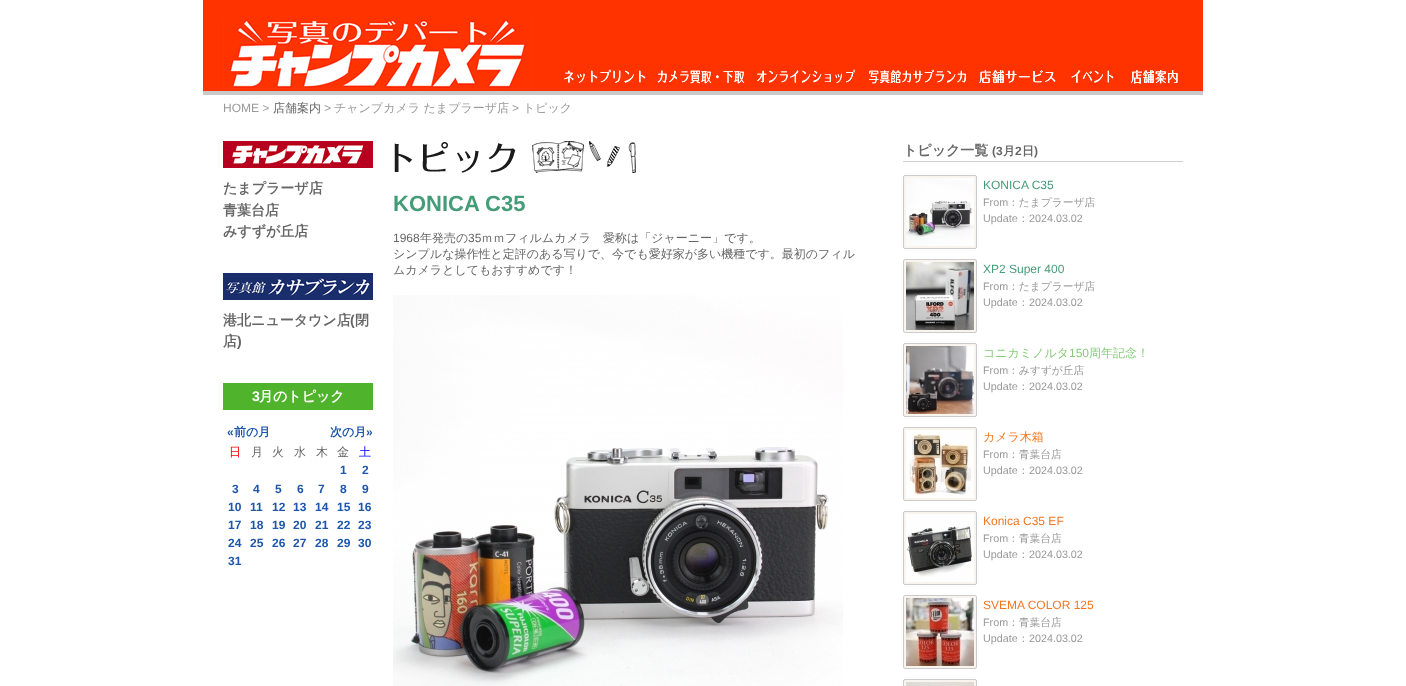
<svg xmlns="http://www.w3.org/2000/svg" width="1406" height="686">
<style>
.a{font:12px Liberation Sans;fill:#999}
.b{font:500 12px WenQuanYi Zen Hei;fill:#666}
.c{font:500 12px WenQuanYi Zen Hei;fill:#999}
.d{font:bold 14px WenQuanYi Zen Hei;fill:#666}
.e{font:bold 14px Liberation Sans;fill:#666}
.f{font:bold 14px Liberation Sans;fill:#fff}
.g{font:bold 14px WenQuanYi Zen Hei;fill:#fff}
.h{font:bold 12px Liberation Sans;fill:#1d56ac}
.i{font:bold 12px WenQuanYi Zen Hei;fill:#1d56ac}
.j{font:500 12px WenQuanYi Zen Hei;fill:#f00}
.k{font:500 12px WenQuanYi Zen Hei;fill:#00f}
.l{font:bold 22px Liberation Sans;fill:#459c78}
.m{font:12px Liberation Sans;fill:#666}
.n{font:bold 12px Liberation Sans;fill:#666}
.o{font:bold 12px WenQuanYi Zen Hei;fill:#666}
.p{font:12px Liberation Sans;fill:#459c78}
.q{font:10.75px Liberation Sans;fill:#999}
.r{font:500 10.75px WenQuanYi Zen Hei;fill:#999}
.s{font:500 12px WenQuanYi Zen Hei;fill:#84cc76}
.t{font:12px Liberation Sans;fill:#84cc76}
.u{font:500 12px WenQuanYi Zen Hei;fill:#f57621}
.v{font:12px Liberation Sans;fill:#f57621}
</style>
<rect width="100%" height="100%" fill="#fff"/>
<path fill="#f30" d="M203 0h1000v91H203z"/>
<path fill="#c9c9c9" d="M203 91h1000v4H203z"/>
<image href="1.png" x="223" y="20" width="310" height="69"/>
<image href="2.png" x="564" y="69" width="82" height="14"/>
<image href="3.png" x="657" y="70" width="88" height="14"/>
<image href="4.png" x="757" y="69" width="98" height="14"/>
<image href="5.png" x="869" y="69" width="97" height="15"/>
<image href="6.png" x="979" y="70" width="77" height="13"/>
<image href="7.png" x="1071" y="70" width="43" height="13"/>
<image href="8.png" x="1131" y="70" width="47" height="14"/>
<image href="9.png" x="223" y="141" width="150" height="27"/>
<image href="10.png" x="223" y="273" width="150" height="27"/>
<path fill="#4fb32b" d="M223 383h150v27H223z"/>
<image href="11.png" x="394" y="141" width="242" height="32"/>
<image href="12.png" x="393" y="295" width="450" height="391"/>
<path fill="#cfcfcf" d="M903 161h280v1H903z"/>
<rect fill="#f9f4ee" stroke="#ccc" x="903.5" y="175.5" width="73" height="73" rx="1.5"/>
<image href="13.png" x="906" y="178" width="68" height="68"/>
<rect fill="#f9f4ee" stroke="#ccc" x="903.5" y="259.5" width="73" height="73" rx="1.5"/>
<image href="14.png" x="906" y="262" width="68" height="68"/>
<rect fill="#f9f4ee" stroke="#ccc" x="903.5" y="343.5" width="73" height="73" rx="1.5"/>
<image href="15.png" x="906" y="346" width="68" height="68"/>
<rect fill="#f9f4ee" stroke="#ccc" x="903.5" y="427.5" width="73" height="73" rx="1.5"/>
<image href="16.png" x="906" y="430" width="68" height="68"/>
<rect fill="#f9f4ee" stroke="#ccc" x="903.5" y="511.5" width="73" height="73" rx="1.5"/>
<image href="17.png" x="906" y="514" width="68" height="68"/>
<rect fill="#f9f4ee" stroke="#ccc" x="903.5" y="595.5" width="73" height="73" rx="1.5"/>
<image href="18.png" x="906" y="598" width="68" height="68"/>
<rect fill="#f9f4ee" stroke="#ccc" x="903.5" y="679.5" width="73" height="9" rx="1.5"/>
<image href="19.png" x="906" y="682" width="68" height="4"/>
<text class="a" x="223" y="112">HOME &gt;</text>
<text class="b" x="273" y="112">店舗案内</text>
<text class="a" x="324" y="112">&gt;</text>
<text class="c" x="334" y="112">チャンプカメラ たまプラーザ店</text>
<text class="a" x="512" y="112">&gt;</text>
<text class="c" x="523" y="112">トピック</text>
<text class="d" x="223" y="193">たまプラーザ店</text>
<text class="d" x="223" y="215">青葉台店</text>
<text class="d" x="223" y="236">みすずが丘店</text>
<text class="d" x="223" y="325">港北ニュータウン店</text>
<text class="e" x="350" y="325">(</text>
<text class="d" x="355" y="325">閉</text>
<text class="d" x="223" y="346">店</text>
<text class="e" x="237" y="346">)</text>
<text class="f" x="252" y="401">3</text>
<text class="g" x="259" y="401">月のトピック</text>
<text class="h" x="227" y="436">«</text>
<text class="i" x="234" y="436">前の月</text>
<text class="i" x="330" y="436">次の月</text>
<text class="h" x="366" y="436">»</text>
<text class="j" x="229" y="456">日</text>
<text class="b" x="251" y="456">月</text>
<text class="b" x="272" y="456">火</text>
<text class="b" x="294" y="456">水</text>
<text class="b" x="316" y="456">木</text>
<text class="b" x="337" y="456">金</text>
<text class="k" x="359" y="456">土</text>
<text class="h" x="340" y="474">1</text>
<text class="h" x="362" y="474">2</text>
<text class="h" x="232" y="493">3</text>
<text class="h" x="253" y="493">4</text>
<text class="h" x="275" y="493">5</text>
<text class="h" x="297" y="493">6</text>
<text class="h" x="318" y="493">7</text>
<text class="h" x="340" y="493">8</text>
<text class="h" x="362" y="493">9</text>
<text class="h" x="228" y="511">10</text>
<text class="h" x="250" y="511">11</text>
<text class="h" x="272" y="511">12</text>
<text class="h" x="293" y="511">13</text>
<text class="h" x="315" y="511">14</text>
<text class="h" x="337" y="511">15</text>
<text class="h" x="358" y="511">16</text>
<text class="h" x="228" y="529">17</text>
<text class="h" x="250" y="529">18</text>
<text class="h" x="272" y="529">19</text>
<text class="h" x="293" y="529">20</text>
<text class="h" x="315" y="529">21</text>
<text class="h" x="337" y="529">22</text>
<text class="h" x="358" y="529">23</text>
<text class="h" x="228" y="547">24</text>
<text class="h" x="250" y="547">25</text>
<text class="h" x="272" y="547">26</text>
<text class="h" x="293" y="547">27</text>
<text class="h" x="315" y="547">28</text>
<text class="h" x="337" y="547">29</text>
<text class="h" x="358" y="547">30</text>
<text class="h" x="228" y="565">31</text>
<text class="l" x="393" y="211">KONICA C35</text>
<text class="m" x="393" y="242">1968</text>
<text class="b" x="420" y="242">年発売の</text>
<text class="m" x="468" y="242">35</text>
<text class="b" x="481" y="242">ｍｍフィルムカメラ　愛称は「ジャーニー」です。</text>
<text class="b" x="393" y="258">シンプルな操作性と定評のある写りで、今でも愛好家が多い機種です。最初のフィル</text>
<text class="b" x="393" y="274">ムカメラとしてもおすすめです！</text>
<text class="d" x="903" y="155">トピック一覧</text>
<text class="n" x="992" y="155">(3</text>
<text class="o" x="1003" y="155">月</text>
<text class="n" x="1015" y="155">2</text>
<text class="o" x="1022" y="155">日</text>
<text class="n" x="1034" y="155">)</text>
<text class="p" x="983" y="189">KONICA C35</text>
<text class="q" x="983" y="206">From</text>
<text class="r" x="1008" y="206">：たまプラーザ店</text>
<text class="q" x="983" y="222">Update</text>
<text class="r" x="1018" y="222">：</text>
<text class="q" x="1029" y="222">2024.03.02</text>
<text class="p" x="983" y="273">XP2 Super 400</text>
<text class="q" x="983" y="290">From</text>
<text class="r" x="1008" y="290">：たまプラーザ店</text>
<text class="q" x="983" y="306">Update</text>
<text class="r" x="1018" y="306">：</text>
<text class="q" x="1029" y="306">2024.03.02</text>
<text class="s" x="983" y="357">コニカミノルタ</text>
<text class="t" x="1069" y="357">150</text>
<text class="s" x="1089" y="357">周年記念！</text>
<text class="q" x="983" y="374">From</text>
<text class="r" x="1008" y="374">：みすずが丘店</text>
<text class="q" x="983" y="390">Update</text>
<text class="r" x="1018" y="390">：</text>
<text class="q" x="1029" y="390">2024.03.02</text>
<text class="u" x="983" y="441">カメラ木箱</text>
<text class="q" x="983" y="458">From</text>
<text class="r" x="1008" y="458">：青葉台店</text>
<text class="q" x="983" y="474">Update</text>
<text class="r" x="1018" y="474">：</text>
<text class="q" x="1029" y="474">2024.03.02</text>
<text class="v" x="983" y="525">Konica C35 EF</text>
<text class="q" x="983" y="542">From</text>
<text class="r" x="1008" y="542">：青葉台店</text>
<text class="q" x="983" y="558">Update</text>
<text class="r" x="1018" y="558">：</text>
<text class="q" x="1029" y="558">2024.03.02</text>
<text class="v" x="983" y="609">SVEMA COLOR 125</text>
<text class="q" x="983" y="626">From</text>
<text class="r" x="1008" y="626">：青葉台店</text>
<text class="q" x="983" y="642">Update</text>
<text class="r" x="1018" y="642">：</text>
<text class="q" x="1029" y="642">2024.03.02</text>
</svg>
